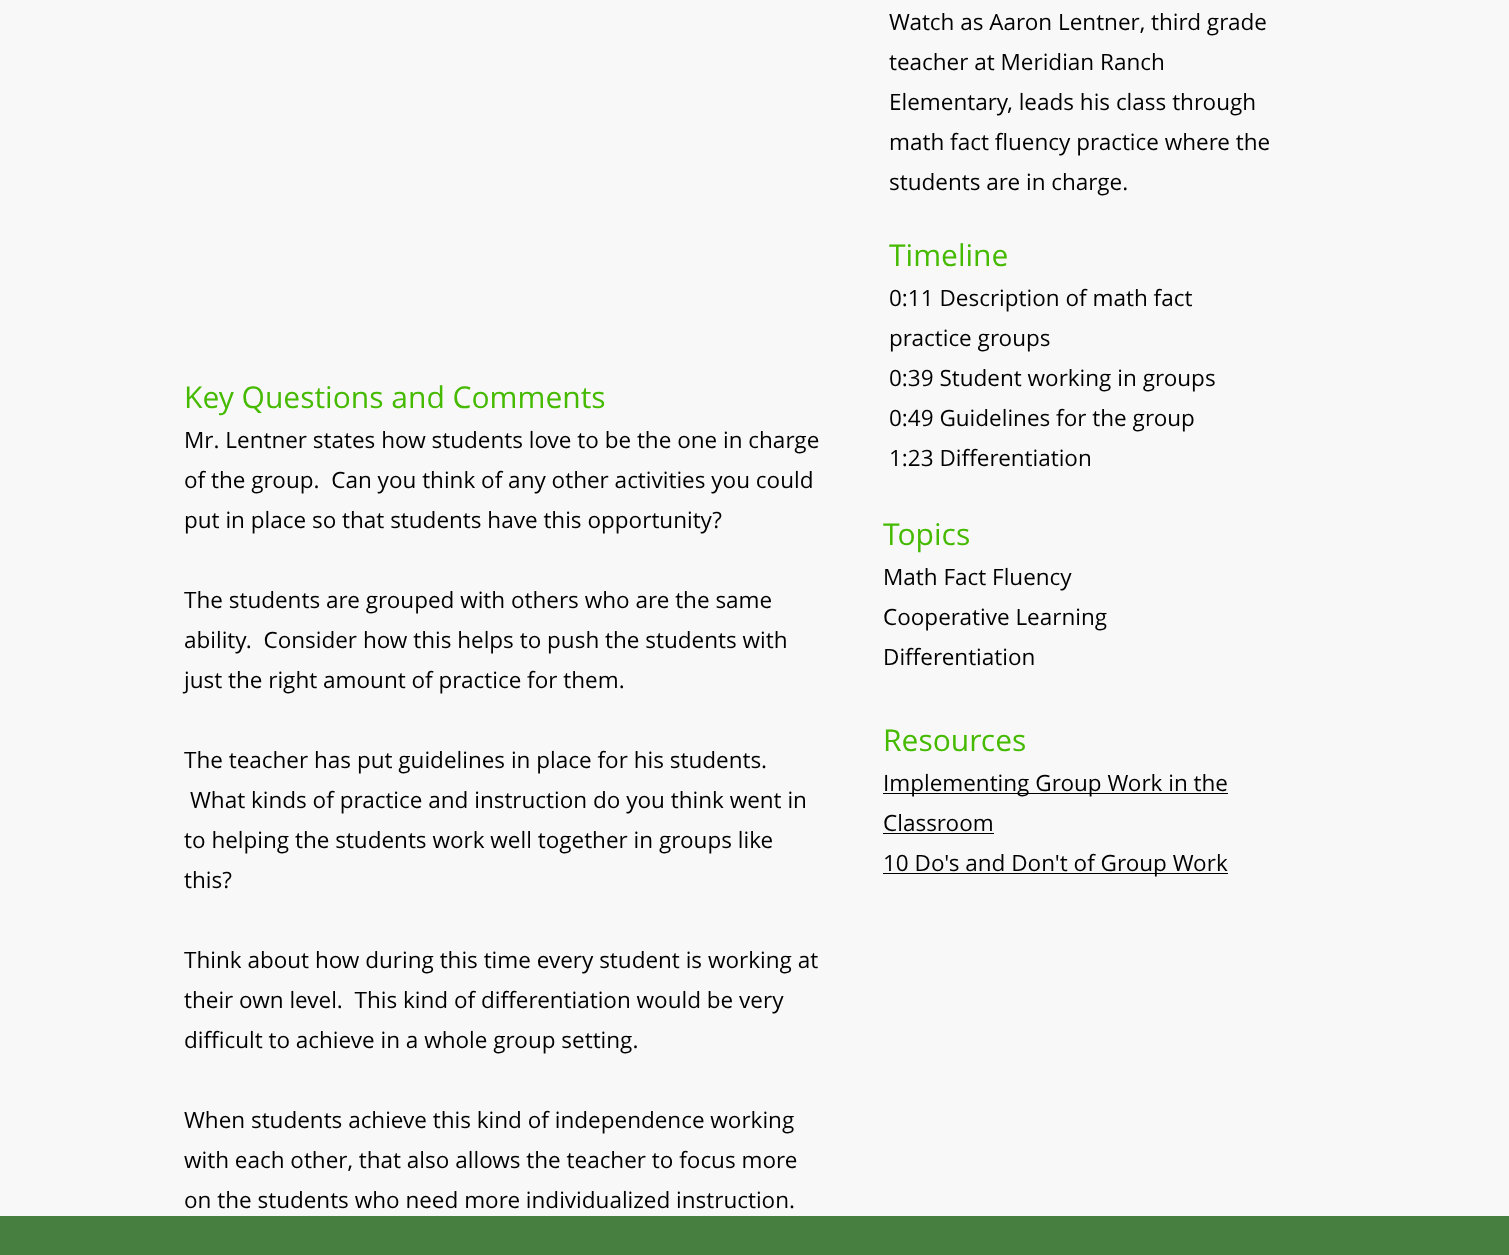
<svg xmlns="http://www.w3.org/2000/svg" width="1509" height="1255">
<style>
.a{font:22.5px Open Sans;fill:#000}
.b{font:30px Open Sans;fill:#45ba01}
</style>
<rect width="100%" height="100%" fill="#f8f8f8"/>
<path fill="#000" d="M883 793h345v1H883z"/>
<path fill="#000" d="M883 833h111v1H883z"/>
<path fill="#000" d="M883 873h345v1H883z"/>
<path fill="#467f3f" d="M0 1216h1509v39H0z"/>
<text class="a" x="889" y="30">Watch as Aaron Lentner, third grade</text>
<text class="a" x="889" y="70">teacher at Meridian Ranch</text>
<text class="a" x="889" y="110">Elementary, leads his class through</text>
<text class="a" x="889" y="150">math fact fluency practice where the</text>
<text class="a" x="889" y="190">students are in charge.</text>
<text class="b" x="889" y="266">Timeline</text>
<text class="a" x="889" y="306">0:11 Description of math fact</text>
<text class="a" x="889" y="346">practice groups</text>
<text class="a" x="889" y="386">0:39 Student working in groups</text>
<text class="a" x="889" y="426">0:49 Guidelines for the group</text>
<text class="a" x="889" y="466">1:23 Differentiation</text>
<text class="b" x="184" y="408">Key Questions and Comments</text>
<text class="a" x="184" y="448">Mr. Lentner states how students love to be the one in charge</text>
<text class="a" xml:space="preserve" x="184" y="488">of the group.  Can you think of any other activities you could</text>
<text class="a" x="184" y="528">put in place so that students have this opportunity?</text>
<text class="a" x="184" y="608">The students are grouped with others who are the same</text>
<text class="a" xml:space="preserve" x="184" y="648">ability.  Consider how this helps to push the students with</text>
<text class="a" x="184" y="688">just the right amount of practice for them.</text>
<text class="a" x="184" y="768">The teacher has put guidelines in place for his students.</text>
<text class="a" x="190" y="808">What kinds of practice and instruction do you think went in</text>
<text class="a" x="184" y="848">to helping the students work well together in groups like</text>
<text class="a" x="184" y="888">this?</text>
<text class="a" x="184" y="968">Think about how during this time every student is working at</text>
<text class="a" xml:space="preserve" x="184" y="1008">their own level.  This kind of differentiation would be very</text>
<text class="a" x="184" y="1048">difficult to achieve in a whole group setting.</text>
<text class="a" x="184" y="1128">When students achieve this kind of independence working</text>
<text class="a" x="184" y="1168">with each other, that also allows the teacher to focus more</text>
<text class="a" x="184" y="1208">on the students who need more individualized instruction.</text>
<text class="b" x="883" y="545">Topics</text>
<text class="a" x="883" y="585">Math Fact Fluency</text>
<text class="a" x="883" y="625">Cooperative Learning</text>
<text class="a" x="883" y="665">Differentiation</text>
<text class="b" x="883" y="751">Resources</text>
<text class="a" x="883" y="791">Implementing Group Work in the</text>
<text class="a" x="883" y="831">Classroom</text>
<text class="a" x="883" y="871">10 Do's and Don't of Group Work</text>
</svg>
